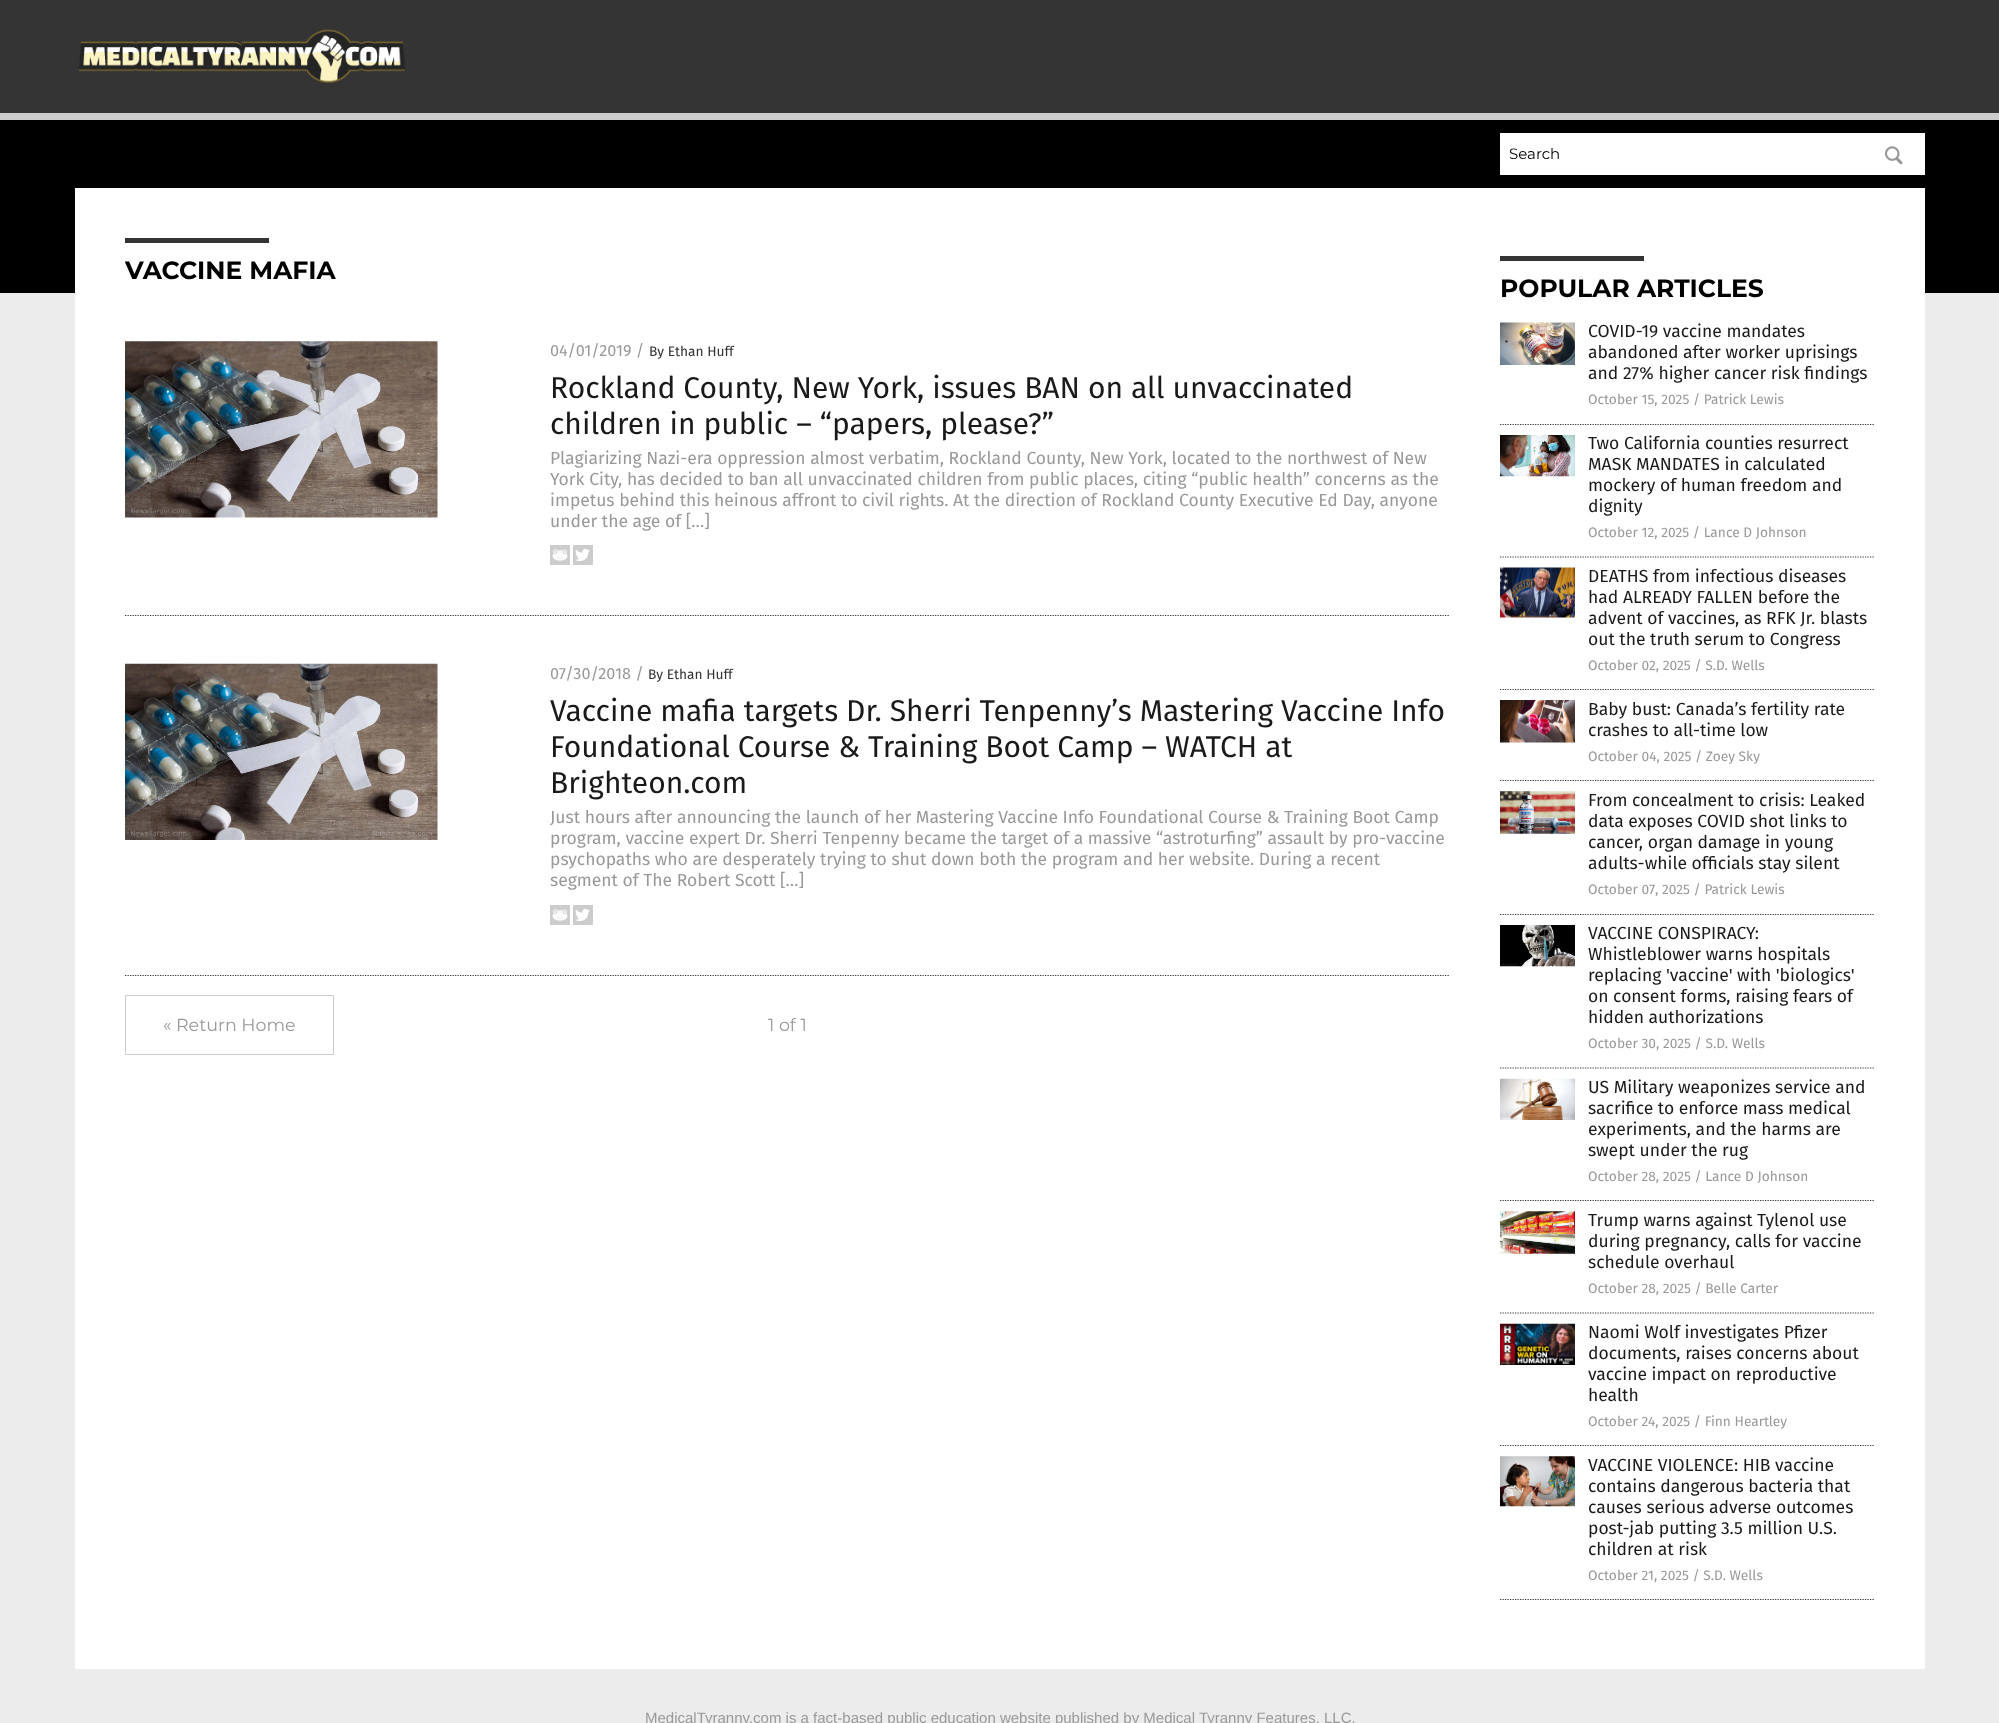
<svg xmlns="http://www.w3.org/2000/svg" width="1999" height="1723">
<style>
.a{font:15px Montserrat;fill:#000}
.b{font:bold 25px Montserrat;fill:#000}
.c{font:16.25px Fira Sans;fill:#999}
.d{font:13.75px Fira Sans;fill:#333}
.e{font:30px Fira Sans;fill:#1a1a1a}
.f{font:17.5px Fira Sans;fill:#999}
.g{font:17.5px Montserrat;fill:#999}
.h{font:17.5px Fira Sans;fill:#1a1a1a}
.i{font:13.75px Fira Sans;fill:#999}
.j{font:15px Liberation Sans;fill:#999}
</style>
<rect width="100%" height="100%" fill="#ececec"/>
<path fill="#000" d="M0 120h1999v173H0z"/>
<path fill="#343434" d="M0 0h1999v113H0z"/>
<image href="1.png" x="79" y="29" width="326" height="54"/>
<path fill="#ccc" d="M0 113h1999v7H0z"/>
<path fill="#fff" d="M1500 133h425v42H1500z"/>
<image href="2.png" x="1884" y="146" width="19" height="19"/>
<path fill="#fff" d="M75 188h1850v1481H75z"/>
<path fill="#343434" d="M125 238h144v5H125z"/>
<path fill="none" stroke="#343434" stroke-width="1.2" stroke-dasharray="1.25 1.25" d="M125 615.5h1325"/>
<image href="3.png" x="125" y="341" width="313" height="177"/>
<image href="4.png" x="550" y="545" width="20" height="20"/>
<image href="5.png" x="573" y="545" width="20" height="20"/>
<path fill="none" stroke="#343434" stroke-width="1.2" stroke-dasharray="1.25 1.25" d="M125 975.5h1325"/>
<image href="6.png" x="125" y="663" width="313" height="177"/>
<image href="4.png" x="550" y="905" width="20" height="20"/>
<image href="5.png" x="573" y="905" width="20" height="20"/>
<path fill="none" stroke="#ccc" d="M125.5 995.5h208v59H125.5z"/>
<path fill="#343434" d="M1500 256h144v5H1500z"/>
<path fill="none" stroke="#343434" stroke-width="1.2" stroke-dasharray="1.25 1.25" d="M1500 424.5h375"/>
<image href="7.png" x="1500" y="322" width="75" height="43"/>
<path fill="none" stroke="#343434" stroke-width="1.2" stroke-dasharray="1.25 1.25" d="M1500 557h375"/>
<image href="8.png" x="1500" y="435" width="75" height="42"/>
<path fill="none" stroke="#343434" stroke-width="1.2" stroke-dasharray="1.25 1.25" d="M1500 689.5h375"/>
<image href="9.png" x="1500" y="567" width="75" height="51"/>
<path fill="none" stroke="#343434" stroke-width="1.2" stroke-dasharray="1.25 1.25" d="M1500 780.5h375"/>
<image href="10.png" x="1500" y="700" width="75" height="43"/>
<path fill="none" stroke="#343434" stroke-width="1.2" stroke-dasharray="1.25 1.25" d="M1500 914.5h375"/>
<image href="11.png" x="1500" y="791" width="75" height="43"/>
<path fill="none" stroke="#343434" stroke-width="1.2" stroke-dasharray="1.25 1.25" d="M1500 1068h375"/>
<image href="12.png" x="1500" y="925" width="75" height="42"/>
<path fill="none" stroke="#343434" stroke-width="1.2" stroke-dasharray="1.25 1.25" d="M1500 1200.5h375"/>
<image href="13.png" x="1500" y="1078" width="75" height="42"/>
<path fill="none" stroke="#343434" stroke-width="1.2" stroke-dasharray="1.25 1.25" d="M1500 1313h375"/>
<image href="14.png" x="1500" y="1211" width="75" height="43"/>
<path fill="none" stroke="#343434" stroke-width="1.2" stroke-dasharray="1.25 1.25" d="M1500 1445.5h375"/>
<image href="15.png" x="1500" y="1323" width="75" height="42"/>
<path fill="none" stroke="#343434" stroke-width="1.2" stroke-dasharray="1.25 1.25" d="M1500 1599.5h375"/>
<image href="16.png" x="1500" y="1456" width="75" height="51"/>
<text class="a" x="1509" y="159">Search</text>
<text class="b" x="125" y="279">VACCINE MAFIA</text>
<text class="c" x="550" y="356">04/01/2019 /</text>
<text class="d" x="649" y="356">By Ethan Huff</text>
<text class="e" x="550" y="398">Rockland County, New York, issues BAN on all unvaccinated</text>
<text class="e" x="550" y="434">children in public – “papers, please?”</text>
<text class="f" x="550" y="464">Plagiarizing Nazi-era oppression almost verbatim, Rockland County, New York, located to the northwest of New</text>
<text class="f" x="550" y="485">York City, has decided to ban all unvaccinated children from public places, citing “public health” concerns as the</text>
<text class="f" x="550" y="506">impetus behind this heinous affront to civil rights. At the direction of Rockland County Executive Ed Day, anyone</text>
<text class="f" x="550" y="527">under the age of […]</text>
<text class="c" x="550" y="679">07/30/2018 /</text>
<text class="d" x="648" y="679">By Ethan Huff</text>
<text class="e" x="550" y="721">Vaccine mafia targets Dr. Sherri Tenpenny’s Mastering Vaccine Info</text>
<text class="e" x="550" y="757">Foundational Course &amp; Training Boot Camp – WATCH at</text>
<text class="e" x="550" y="793">Brighteon.com</text>
<text class="f" x="550" y="823">Just hours after announcing the launch of her Mastering Vaccine Info Foundational Course &amp; Training Boot Camp</text>
<text class="f" x="550" y="844">program, vaccine expert Dr. Sherri Tenpenny became the target of a massive “astroturfing” assault by pro-vaccine</text>
<text class="f" x="550" y="865">psychopaths who are desperately trying to shut down both the program and her website. During a recent</text>
<text class="f" x="550" y="886">segment of The Robert Scott […]</text>
<text class="g" x="163" y="1031">« Return Home</text>
<text class="g" x="768" y="1031">1 of 1</text>
<text class="b" x="1500" y="297">POPULAR ARTICLES</text>
<text class="h" x="1588" y="337">COVID-19 vaccine mandates</text>
<text class="h" x="1588" y="358">abandoned after worker uprisings</text>
<text class="h" x="1588" y="379">and 27% higher cancer risk findings</text>
<text class="i" x="1588" y="404">October 15, 2025 / Patrick Lewis</text>
<text class="h" x="1588" y="449">Two California counties resurrect</text>
<text class="h" x="1588" y="470">MASK MANDATES in calculated</text>
<text class="h" x="1588" y="491">mockery of human freedom and</text>
<text class="h" x="1588" y="512">dignity</text>
<text class="i" x="1588" y="537">October 12, 2025 / Lance D Johnson</text>
<text class="h" x="1588" y="582">DEATHS from infectious diseases</text>
<text class="h" x="1588" y="603">had ALREADY FALLEN before the</text>
<text class="h" x="1588" y="624">advent of vaccines, as RFK Jr. blasts</text>
<text class="h" x="1588" y="645">out the truth serum to Congress</text>
<text class="i" x="1588" y="670">October 02, 2025 / S.D. Wells</text>
<text class="h" x="1588" y="715">Baby bust: Canada’s fertility rate</text>
<text class="h" x="1588" y="736">crashes to all-time low</text>
<text class="i" x="1588" y="761">October 04, 2025 / Zoey Sky</text>
<text class="h" x="1588" y="806">From concealment to crisis: Leaked</text>
<text class="h" x="1588" y="827">data exposes COVID shot links to</text>
<text class="h" x="1588" y="848">cancer, organ damage in young</text>
<text class="h" x="1588" y="869">adults-while officials stay silent</text>
<text class="i" x="1588" y="894">October 07, 2025 / Patrick Lewis</text>
<text class="h" x="1588" y="939">VACCINE CONSPIRACY:</text>
<text class="h" x="1588" y="960">Whistleblower warns hospitals</text>
<text class="h" x="1588" y="981">replacing 'vaccine' with 'biologics'</text>
<text class="h" x="1588" y="1002">on consent forms, raising fears of</text>
<text class="h" x="1588" y="1023">hidden authorizations</text>
<text class="i" x="1588" y="1048">October 30, 2025 / S.D. Wells</text>
<text class="h" x="1588" y="1093">US Military weaponizes service and</text>
<text class="h" x="1588" y="1114">sacrifice to enforce mass medical</text>
<text class="h" x="1588" y="1135">experiments, and the harms are</text>
<text class="h" x="1588" y="1156">swept under the rug</text>
<text class="i" x="1588" y="1181">October 28, 2025 / Lance D Johnson</text>
<text class="h" x="1588" y="1226">Trump warns against Tylenol use</text>
<text class="h" x="1588" y="1247">during pregnancy, calls for vaccine</text>
<text class="h" x="1588" y="1268">schedule overhaul</text>
<text class="i" x="1588" y="1293">October 28, 2025 / Belle Carter</text>
<text class="h" x="1588" y="1338">Naomi Wolf investigates Pfizer</text>
<text class="h" x="1588" y="1359">documents, raises concerns about</text>
<text class="h" x="1588" y="1380">vaccine impact on reproductive</text>
<text class="h" x="1588" y="1401">health</text>
<text class="i" x="1588" y="1426">October 24, 2025 / Finn Heartley</text>
<text class="h" x="1588" y="1471">VACCINE VIOLENCE: HIB vaccine</text>
<text class="h" x="1588" y="1492">contains dangerous bacteria that</text>
<text class="h" x="1588" y="1513">causes serious adverse outcomes</text>
<text class="h" x="1588" y="1534">post-jab putting 3.5 million U.S.</text>
<text class="h" x="1588" y="1555">children at risk</text>
<text class="i" x="1588" y="1580">October 21, 2025 / S.D. Wells</text>
<text class="j" x="645" y="1723">MedicalTyranny.com is a fact-based public education website published by Medical Tyranny Features, LLC.</text>
</svg>
